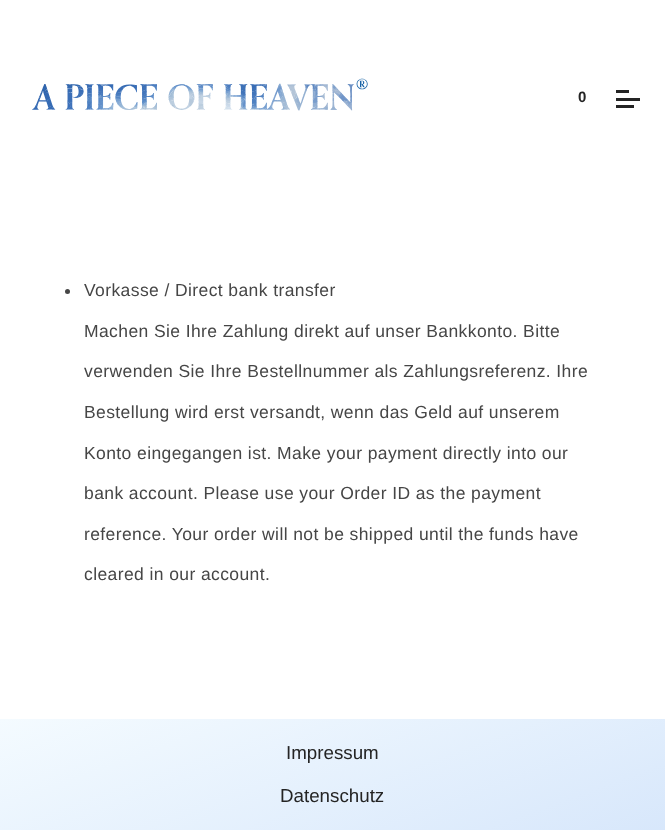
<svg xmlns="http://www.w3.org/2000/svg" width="665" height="830">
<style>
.a{font:bold 15px Liberation Sans;fill:#242424}
.b{font:17.5px Liberation Sans;letter-spacing:0.4px;fill:#464646}
.c{font:18.75px Liberation Sans;fill:#242424}
</style>
<defs>
<linearGradient id="g1" gradientUnits="userSpaceOnUse" x1="154" y1="663" x2="511" y2="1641"><stop offset="0" stop-color="#f4fbff"/><stop offset="1" stop-color="#9bbdf3"/></linearGradient>
</defs>
<rect width="100%" height="100%" fill="#fff"/>
<image href="1.png" x="32" y="78" width="336" height="33"/>
<path fill="#242424" d="M616 98h24v3H616z"/>
<path fill="#242424" d="M616 90h13v3H616z"/>
<path fill="#242424" d="M616 105h18v3H616z"/>
<circle fill="#464646" cx="67.5" cy="291.5" r="2.5"/>
<path fill="url(#g1)" d="M0 719h665v111H0z"/>
<text class="a" x="578" y="102">0</text>
<text class="b" x="84" y="296">Vorkasse / Direct bank transfer</text>
<text class="b" x="84" y="337">Machen Sie Ihre Zahlung direkt auf unser Bankkonto. Bitte</text>
<text class="b" x="84" y="377">verwenden Sie Ihre Bestellnummer als Zahlungsreferenz. Ihre</text>
<text class="b" x="84" y="418">Bestellung wird erst versandt, wenn das Geld auf unserem</text>
<text class="b" x="84" y="459">Konto eingegangen ist. Make your payment directly into our</text>
<text class="b" x="84" y="499">bank account. Please use your Order ID as the payment</text>
<text class="b" x="84" y="540">reference. Your order will not be shipped until the funds have</text>
<text class="b" x="84" y="580">cleared in our account.</text>
<text class="c" x="286" y="759">Impressum</text>
<text class="c" x="280" y="802">Datenschutz</text>
</svg>
